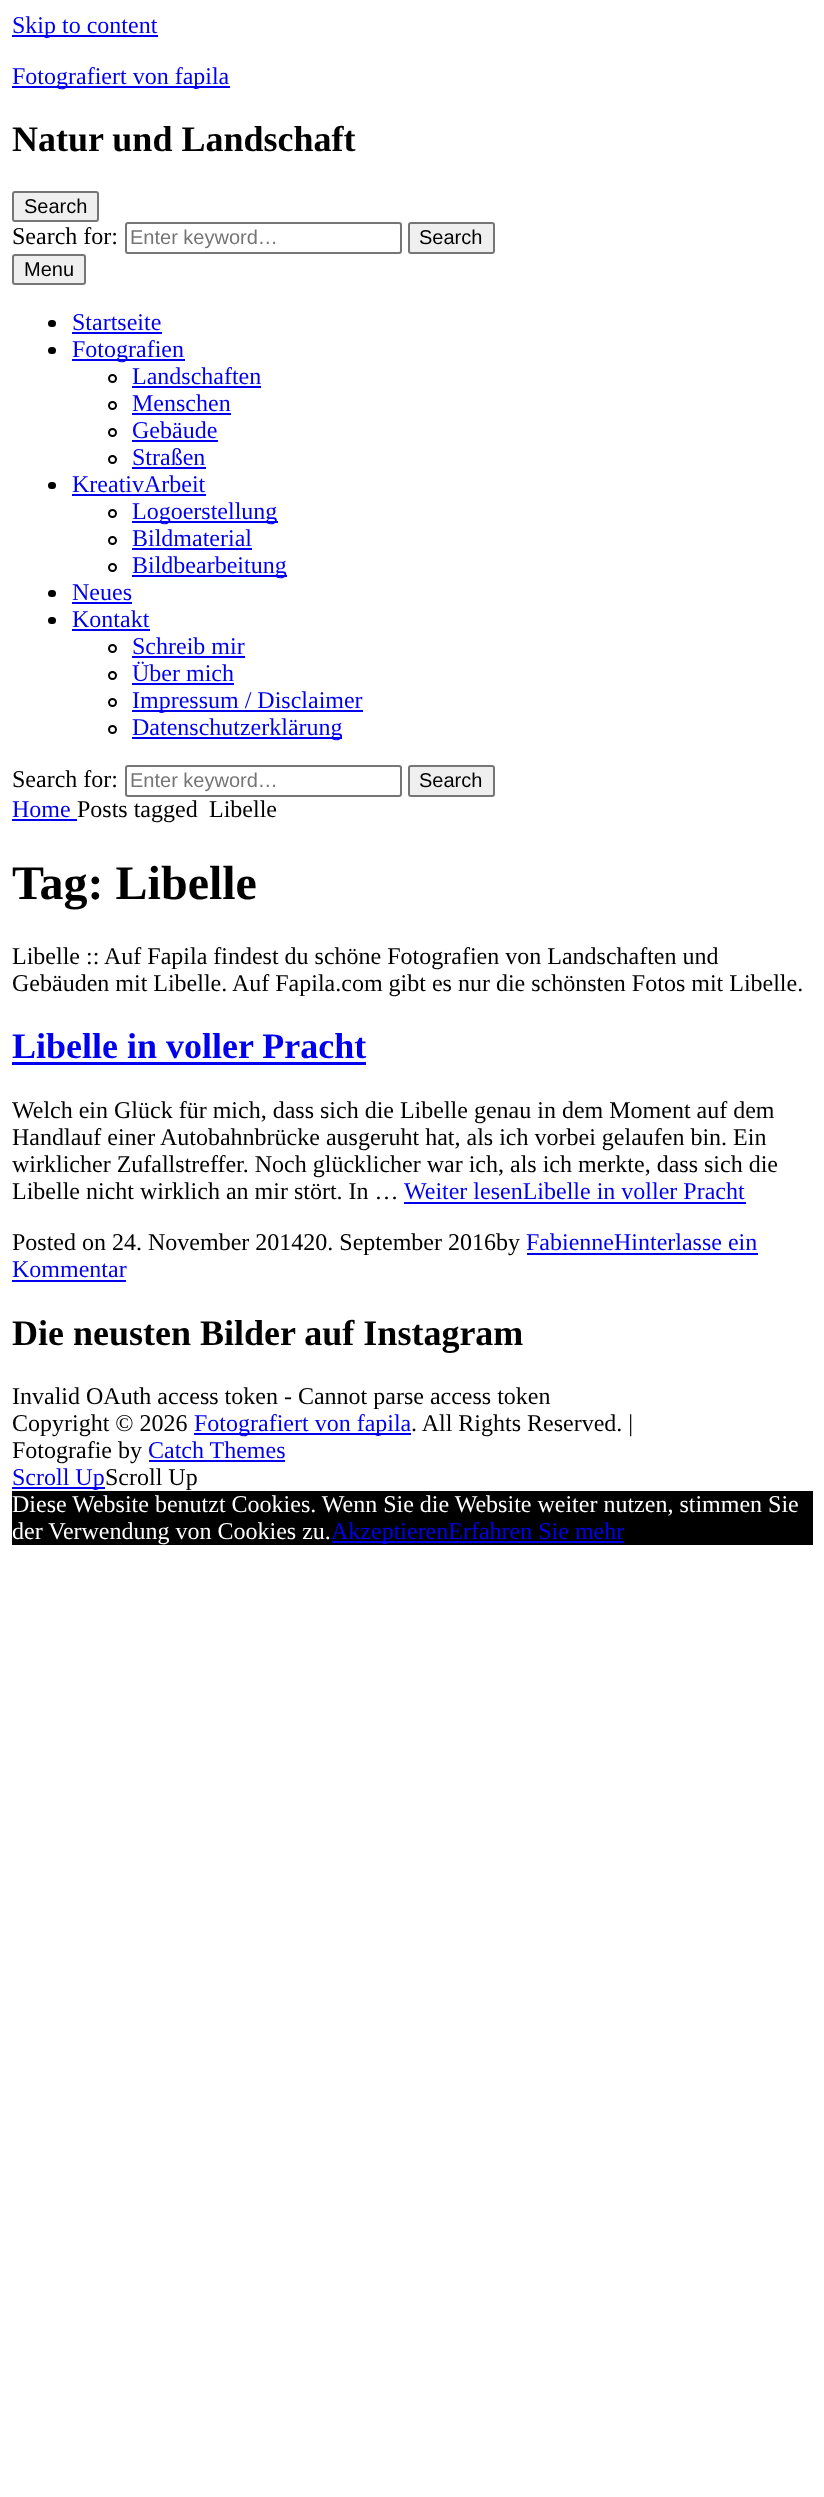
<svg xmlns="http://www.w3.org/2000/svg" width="824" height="2497">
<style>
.a{font:24px Liberation Serif;fill:#00e}
.b{font:bold 36px Liberation Serif;fill:#000}
.c{font:20px Liberation Sans;fill:#000}
.d{font:24px Liberation Serif;fill:#000}
.e{font:20px Liberation Sans;fill:#757575}
.f{font:bold 48px Liberation Serif;fill:#000}
.g{font:bold 36px Liberation Serif;fill:#00e}
.h{font:24px Liberation Serif;fill:#fff}
</style>
<rect width="100%" height="100%" fill="#fff"/>
<path fill="#00e" d="M12 35h146v2H12z"/>
<path fill="#00e" d="M12 86h218v2H12z"/>
<rect fill="#efefef" stroke="#767676" stroke-width="2" x="13" y="192" width="85" height="29" rx="2"/>
<rect fill="none" stroke="#767676" stroke-width="2" x="126" y="223" width="275" height="30" rx="2"/>
<rect fill="#efefef" stroke="#767676" stroke-width="2" x="409" y="223" width="85" height="30" rx="2"/>
<rect fill="#efefef" stroke="#767676" stroke-width="2" x="13" y="255" width="72" height="29" rx="2"/>
<rect fill="#000" x="48" y="320" width="8" height="7" rx="3.5"/>
<path fill="#00e" d="M72 332h90v2H72z"/>
<rect fill="#000" x="48" y="347" width="8" height="7" rx="3.5"/>
<path fill="#00e" d="M72 359h113v2H72z"/>
<circle fill="none" stroke="#000" stroke-width="2" cx="112.5" cy="378.5" r="3.5"/>
<path fill="#00e" d="M132 386h129v2H132z"/>
<circle fill="none" stroke="#000" stroke-width="2" cx="112.5" cy="405.5" r="3.5"/>
<path fill="#00e" d="M132 413h99v2H132z"/>
<circle fill="none" stroke="#000" stroke-width="2" cx="112.5" cy="432.5" r="3.5"/>
<path fill="#00e" d="M132 440h86v2H132z"/>
<circle fill="none" stroke="#000" stroke-width="2" cx="112.5" cy="459.5" r="3.5"/>
<path fill="#00e" d="M132 467h74v2H132z"/>
<rect fill="#000" x="48" y="482" width="8" height="7" rx="3.5"/>
<path fill="#00e" d="M72 494h134v2H72z"/>
<circle fill="none" stroke="#000" stroke-width="2" cx="112.5" cy="513.5" r="3.5"/>
<path fill="#00e" d="M132 521h146v2H132z"/>
<circle fill="none" stroke="#000" stroke-width="2" cx="112.5" cy="540.5" r="3.5"/>
<path fill="#00e" d="M132 548h120v2H132z"/>
<circle fill="none" stroke="#000" stroke-width="2" cx="112.5" cy="567.5" r="3.5"/>
<path fill="#00e" d="M132 575h155v2H132z"/>
<rect fill="#000" x="48" y="590" width="8" height="7" rx="3.5"/>
<path fill="#00e" d="M72 602h60v2H72z"/>
<rect fill="#000" x="48" y="617" width="8" height="7" rx="3.5"/>
<path fill="#00e" d="M72 629h78v2H72z"/>
<circle fill="none" stroke="#000" stroke-width="2" cx="112.5" cy="648.5" r="3.5"/>
<path fill="#00e" d="M132 656h113v2H132z"/>
<circle fill="none" stroke="#000" stroke-width="2" cx="112.5" cy="675.5" r="3.5"/>
<path fill="#00e" d="M132 683h102v2H132z"/>
<circle fill="none" stroke="#000" stroke-width="2" cx="112.5" cy="702.5" r="3.5"/>
<path fill="#00e" d="M132 710h231v2H132z"/>
<circle fill="none" stroke="#000" stroke-width="2" cx="112.5" cy="729.5" r="3.5"/>
<path fill="#00e" d="M132 737h210v2H132z"/>
<rect fill="none" stroke="#767676" stroke-width="2" x="126" y="766" width="275" height="30" rx="2"/>
<rect fill="#efefef" stroke="#767676" stroke-width="2" x="409" y="766" width="85" height="30" rx="2"/>
<path fill="#00e" d="M12 819h65v2H12z"/>
<path fill="#00e" d="M12 1062h354v3H12z"/>
<path fill="#00e" d="M404 1202h342v2H404z"/>
<path fill="#00e" d="M527 1253h231v2H527z"/>
<path fill="#00e" d="M12 1280h114v2H12z"/>
<path fill="#00e" d="M194 1433h217v2H194z"/>
<path fill="#00e" d="M149 1460h136v2H149z"/>
<path fill="#00e" d="M12 1487h93v2H12z"/>
<path fill="#000" d="M12 1491h801v54H12z"/>
<path fill="#00e" d="M332 1541h292v2H332z"/>
<text class="a" x="12" y="33">Skip to content</text>
<text class="a" x="12" y="84">Fotografiert von fapila</text>
<text class="b" x="12" y="151">Natur und Landschaft</text>
<text class="c" x="24" y="213">Search</text>
<text class="d" x="12" y="244">Search for:</text>
<text class="e" x="130" y="244">Enter keyword…</text>
<text class="c" x="419" y="244">Search</text>
<text class="c" x="24" y="276">Menu</text>
<text class="a" x="72" y="330">Startseite</text>
<text class="a" x="72" y="357">Fotografien</text>
<text class="a" x="132" y="384">Landschaften</text>
<text class="a" x="132" y="411">Menschen</text>
<text class="a" x="132" y="438">Gebäude</text>
<text class="a" x="132" y="465">Straßen</text>
<text class="a" x="72" y="492">KreativArbeit</text>
<text class="a" x="132" y="519">Logoerstellung</text>
<text class="a" x="132" y="546">Bildmaterial</text>
<text class="a" x="132" y="573">Bildbearbeitung</text>
<text class="a" x="72" y="600">Neues</text>
<text class="a" x="72" y="627">Kontakt</text>
<text class="a" x="132" y="654">Schreib mir</text>
<text class="a" x="132" y="681">Über mich</text>
<text class="a" x="132" y="708">Impressum / Disclaimer</text>
<text class="a" x="132" y="735">Datenschutzerklärung</text>
<text class="d" x="12" y="787">Search for:</text>
<text class="e" x="130" y="787">Enter keyword…</text>
<text class="c" x="419" y="787">Search</text>
<text class="a" x="12" y="817">Home</text>
<text class="d" x="77" y="817">Posts tagged</text>
<text class="d" x="209" y="817">Libelle</text>
<text class="f" x="12" y="899">Tag: Libelle</text>
<text class="d" x="12" y="964">Libelle :: Auf Fapila findest du schöne Fotografien von Landschaften und</text>
<text class="d" x="12" y="991">Gebäuden mit Libelle. Auf Fapila.com gibt es nur die schönsten Fotos mit Libelle.</text>
<text class="g" x="12" y="1058">Libelle in voller Pracht</text>
<text class="d" x="12" y="1118">Welch ein Glück für mich, dass sich die Libelle genau in dem Moment auf dem</text>
<text class="d" x="12" y="1145">Handlauf einer Autobahnbrücke ausgeruht hat, als ich vorbei gelaufen bin. Ein</text>
<text class="d" x="12" y="1172">wirklicher Zufallstreffer. Noch glücklicher war ich, als ich merkte, dass sich die</text>
<text class="d" x="12" y="1199">Libelle nicht wirklich an mir stört. In …</text>
<text class="a" x="404" y="1199">Weiter lesenLibelle in voller Pracht</text>
<text class="d" x="12" y="1250">Posted on 24. November 201420. September 2016by</text>
<text class="a" x="526" y="1250">FabienneHinterlasse ein</text>
<text class="a" x="12" y="1277">Kommentar</text>
<text class="b" x="12" y="1345">Die neusten Bilder auf Instagram</text>
<text class="d" x="12" y="1404">Invalid OAuth access token - Cannot parse access token</text>
<text class="d" x="12" y="1431">Copyright © 2026</text>
<text class="a" x="194" y="1431">Fotografiert von fapila</text>
<text class="d" x="411" y="1431">. All Rights Reserved. |</text>
<text class="d" x="12" y="1458">Fotografie by</text>
<text class="a" x="148" y="1458">Catch Themes</text>
<text class="a" x="12" y="1485">Scroll Up</text>
<text class="d" x="105" y="1485">Scroll Up</text>
<text class="h" x="12" y="1512">Diese Website benutzt Cookies. Wenn Sie die Website weiter nutzen, stimmen Sie</text>
<text class="h" x="12" y="1539">der Verwendung von Cookies zu.</text>
<text class="a" x="331" y="1539">AkzeptierenErfahren Sie mehr</text>
</svg>
